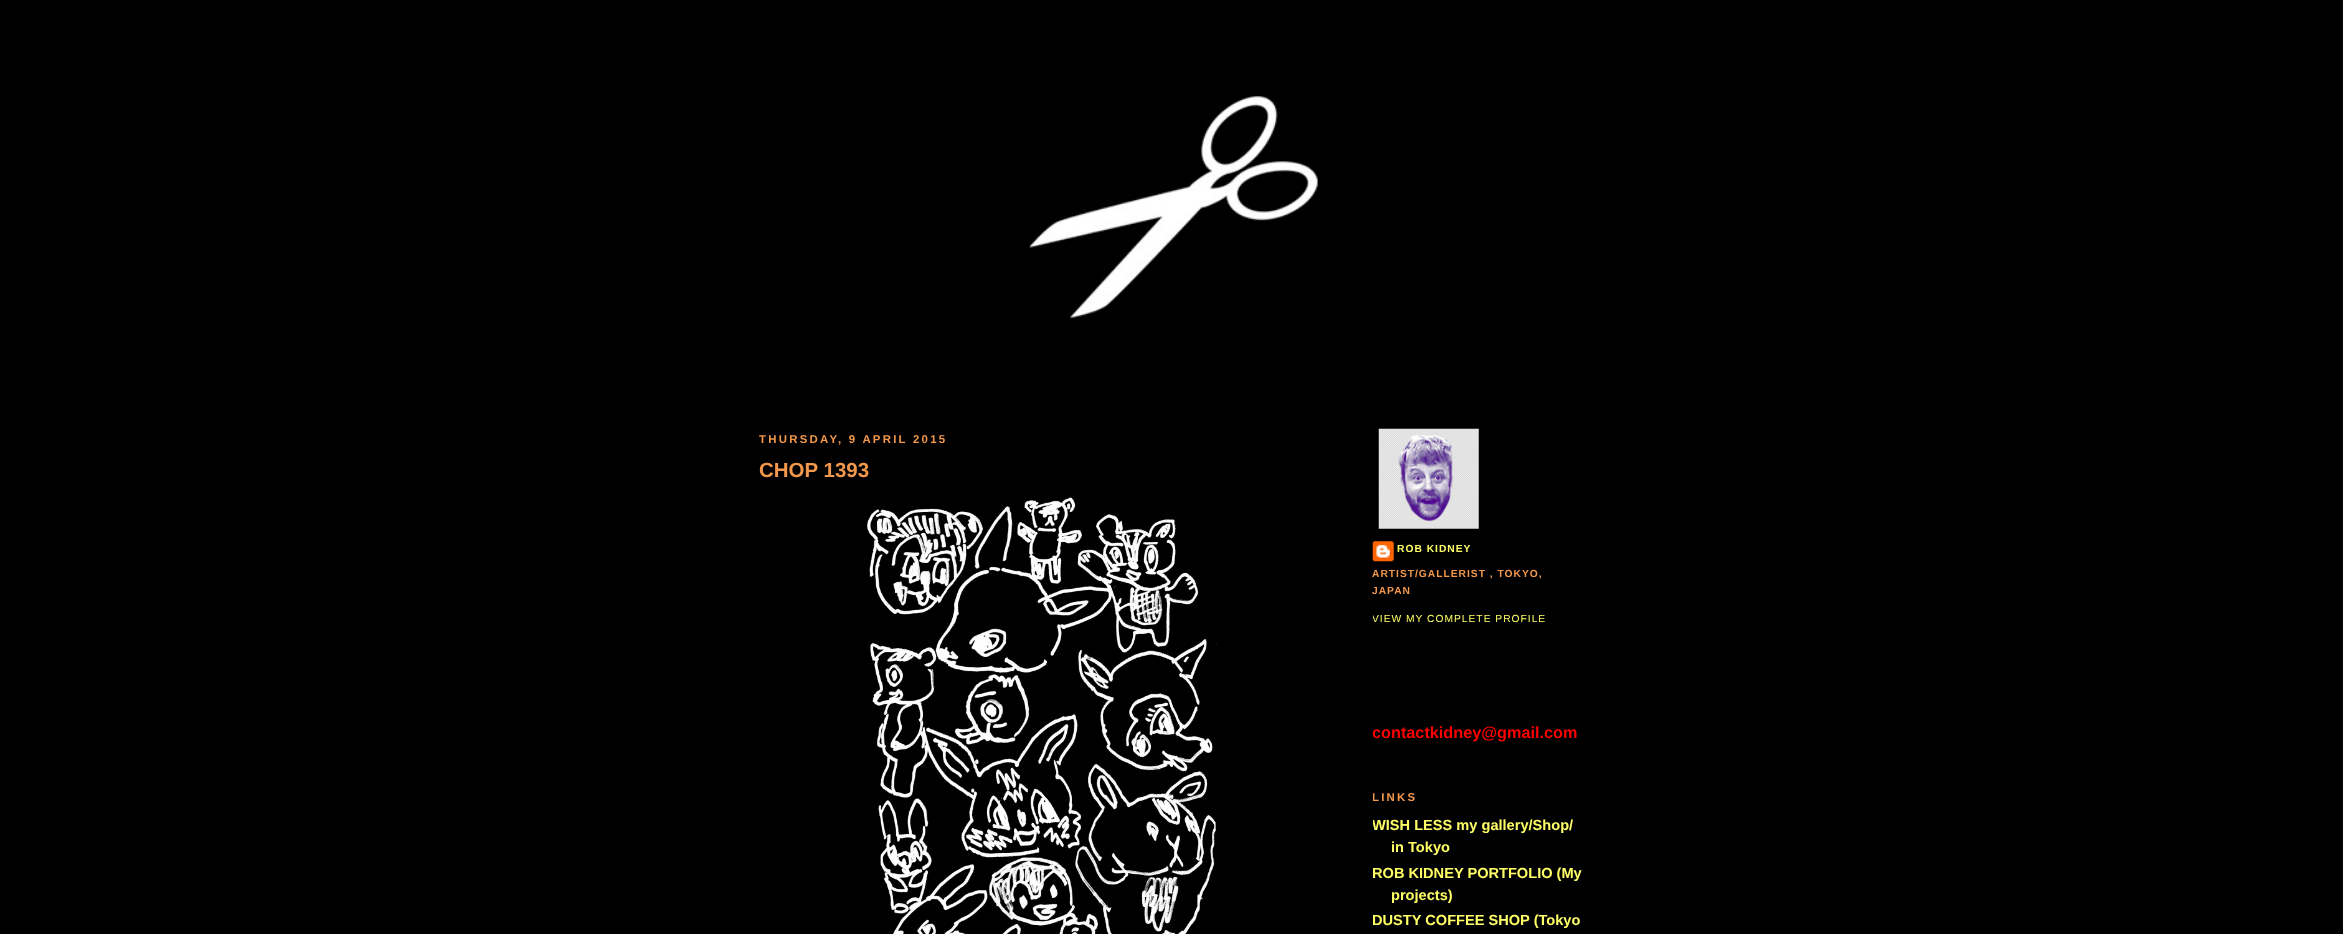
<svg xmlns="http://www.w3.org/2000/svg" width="2343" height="934">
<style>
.a{font:bold 11.4px Liberation Sans;letter-spacing:2.25px;fill:#f2984c}
.b{font:bold 20.5px Liberation Sans;fill:#f2984c}
.c{font:bold 10.25px Liberation Sans;letter-spacing:1px;fill:#ff6}
.d{font:bold 10.25px Liberation Sans;letter-spacing:1px;fill:#f2984c}
.e{font:10.25px Liberation Sans;letter-spacing:1px;fill:#ff6}
.f{font:bold 16.25px Liberation Sans;fill:#f00}
.g{font:bold 14.6px Liberation Sans;fill:#ff6}
</style>
<defs>
<clipPath id="clip1"><path d="M1373 415h212v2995H1373z"/></clipPath>
</defs>
<rect width="100%" height="100%" fill="#000"/>
<image href="1.png" x="1029" y="96" width="289" height="224"/>
<image href="2.png" x="867" y="497" width="350" height="437"/>
<image href="3.png" x="1378" y="428" width="101" height="101"/>
<image href="4.png" x="1372" y="541" width="22" height="21"/>
<text class="a" x="759" y="443">THURSDAY, 9 APRIL 2015</text>
<text class="b" x="759" y="477">CHOP 1393</text>
<text class="c" x="1397" y="552">ROB KIDNEY</text>
<text class="d" x="1372" y="577">ARTIST/GALLERIST , TOKYO,</text>
<text class="d" x="1372" y="594">JAPAN</text>
<g clip-path="url(#clip1)">
<text class="e" x="1372" y="622">VIEW MY COMPLETE PROFILE</text>
<text class="f" x="1372" y="738">contactkidney@gmail.com</text>
<text class="a" x="1372" y="801">LINKS</text>
<text class="g" x="1372" y="830">WISH LESS my gallery/Shop/</text>
</g>
<text class="g" x="1391" y="852">in Tokyo</text>
<g clip-path="url(#clip1)">
<text class="g" x="1372" y="878">ROB KIDNEY PORTFOLIO (My</text>
</g>
<text class="g" x="1391" y="900">projects)</text>
<g clip-path="url(#clip1)">
<text class="g" x="1372" y="925">DUSTY COFFEE SHOP (Tokyo</text>
</g>
</svg>
